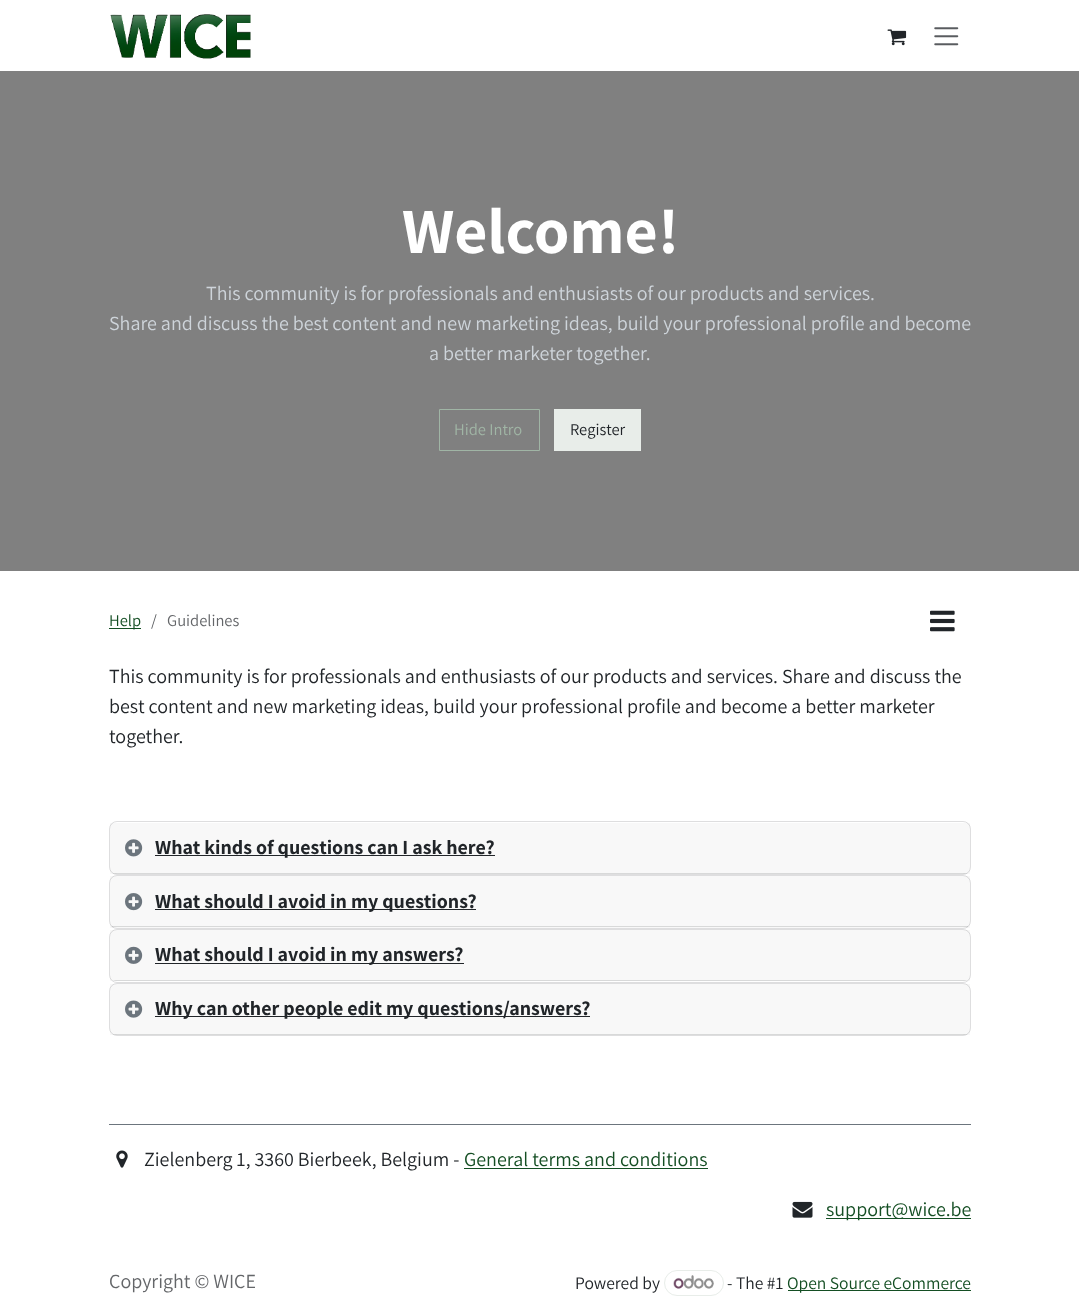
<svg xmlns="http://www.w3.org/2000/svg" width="1079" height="1316">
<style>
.a{font:bold 64.5px Assistant;fill:#fff}
.b{font:20px Assistant;fill:#ced4da}
.c{font:16.5px Assistant;fill:#a0b5a5}
.d{font:16.5px Assistant;fill:#212529}
.e{font:16.5px Assistant;fill:#144e23}
.f{font:16.5px Assistant;fill:#595c5f}
.g{font:16.5px Assistant;fill:#646669}
.h{font:20px Assistant;fill:#212529}
.i{font:bold 20px Assistant;fill:#212529}
.j{font:20px Assistant;fill:#144e23}
.k{font:20px Assistant;fill:#646669}
.l{font:17.5px Assistant;fill:#212529}
.m{font:17.5px Assistant;fill:#144e23}
</style>
<defs>
<clipPath id="clip1"><rect x="110" y="823" width="860" height="51" rx="6"/></clipPath>
<clipPath id="clip2"><rect x="110" y="876" width="860" height="52" rx="6"/></clipPath>
<clipPath id="clip3"><rect x="110" y="930" width="860" height="51" rx="6"/></clipPath>
<clipPath id="clip4"><rect x="110" y="984" width="860" height="51" rx="6"/></clipPath>
</defs>
<rect width="100%" height="100%" fill="#fff"/>
<image href="1.png" x="110" y="14" width="141" height="45"/>
<image href="2.png" x="887" y="29" width="20" height="17"/>
<image href="3.png" x="934" y="27" width="25" height="19"/>
<path fill="#808080" d="M0 71h1079v500H0z"/>
<path fill="none" stroke="#a0b5a5" d="M439.5 409.5h100v41H439.5z"/>
<path fill="#e8ede9" d="M554 409h87v42H554z"/>
<path fill="#144e23" d="M109 628h32v1H109z"/>
<image href="4.png" x="930" y="610" width="25" height="22"/>
<rect fill="none" stroke="#dededf" x="109.5" y="821.5" width="861" height="53" rx="7.5"/>
<path fill="#21252908" d="M110 823h860v51H110z"/>
<g clip-path="url(#clip1)">
<path fill="#21252926" d="M110 873h860v1H110z"/>
</g>
<image href="5.png" x="125" y="839" width="18" height="18"/>
<path fill="#212529" d="M155 855h340v1H155z"/>
<rect fill="none" stroke="#dededf" x="109.5" y="875.5" width="861" height="53" rx="7.5"/>
<path fill="#21252908" d="M110 876h860v52H110z"/>
<g clip-path="url(#clip2)">
<path fill="#21252926" d="M110 926h860v1H110z"/>
</g>
<image href="6.png" x="125" y="893" width="18" height="18"/>
<path fill="#212529" d="M155 909h321v1H155z"/>
<rect fill="none" stroke="#dededf" x="109.5" y="929.5" width="861" height="53" rx="7.5"/>
<path fill="#21252908" d="M110 930h860v51H110z"/>
<g clip-path="url(#clip3)">
<path fill="#d8d9d9" d="M110 980h860v1H110z"/>
</g>
<image href="7.png" x="125" y="946" width="18" height="18"/>
<path fill="#212529" d="M155 963h309v1H155z"/>
<rect fill="none" stroke="#dededf" x="109.5" y="983.5" width="861" height="52" rx="7.5"/>
<path fill="#21252908" d="M110 984h860v51H110z"/>
<g clip-path="url(#clip4)">
<path fill="#21252926" d="M110 1034h860v1H110z"/>
</g>
<image href="8.png" x="125" y="1000" width="18" height="18"/>
<path fill="#212529" d="M155 1016h435v1H155z"/>
<path fill="#6c757d" d="M109 1124h862v1H109z"/>
<image href="9.png" x="116" y="1150" width="12" height="18"/>
<path fill="#144e23" d="M464 1168h244v1H464z"/>
<image href="10.png" x="792" y="1201" width="21" height="17"/>
<path fill="#144e23" d="M826 1218h145v1H826z"/>
<rect fill="none" stroke="#e8ede9" x="664.5" y="1270.5" width="59" height="25" rx="12.5"/>
<image href="11.png" x="673" y="1275" width="41" height="14"/>
<path fill="#144e23" d="M788 1290h183v1H788z"/>
<text class="a" x="402" y="253">Welcome!</text>
<text class="b" x="206" y="300">This community is for professionals and enthusiasts of our products and services.</text>
<text class="b" x="109" y="330">Share and discuss the best content and new marketing ideas, build your professional profile and become</text>
<text class="b" x="429" y="360">a better marketer together.</text>
<text class="c" x="454" y="435">Hide Intro</text>
<text class="d" x="570" y="435">Register</text>
<text class="e" x="109" y="626">Help</text>
<text class="f" x="151" y="626">/</text>
<text class="g" x="167" y="626">Guidelines</text>
<text class="h" x="109" y="683">This community is for professionals and enthusiasts of our products and services. Share and discuss the</text>
<text class="h" x="109" y="713">best content and new marketing ideas, build your professional profile and become a better marketer</text>
<text class="h" x="109" y="743">together.</text>
<text class="i" x="155" y="854">What kinds of questions can I ask here?</text>
<text class="i" x="155" y="908">What should I avoid in my questions?</text>
<text class="i" x="155" y="961">What should I avoid in my answers?</text>
<text class="i" x="155" y="1015">Why can other people edit my questions/answers?</text>
<text class="h" x="144" y="1166">Zielenberg 1, 3360 Bierbeek, Belgium -</text>
<text class="j" x="464" y="1166">General terms and conditions</text>
<text class="j" x="826" y="1216">support@wice.be</text>
<text class="k" x="109" y="1288">Copyright © WICE</text>
<text class="l" x="575" y="1289">Powered by</text>
<text class="l" x="727" y="1289">- The #1</text>
<text class="m" x="787" y="1289">Open Source eCommerce</text>
</svg>
